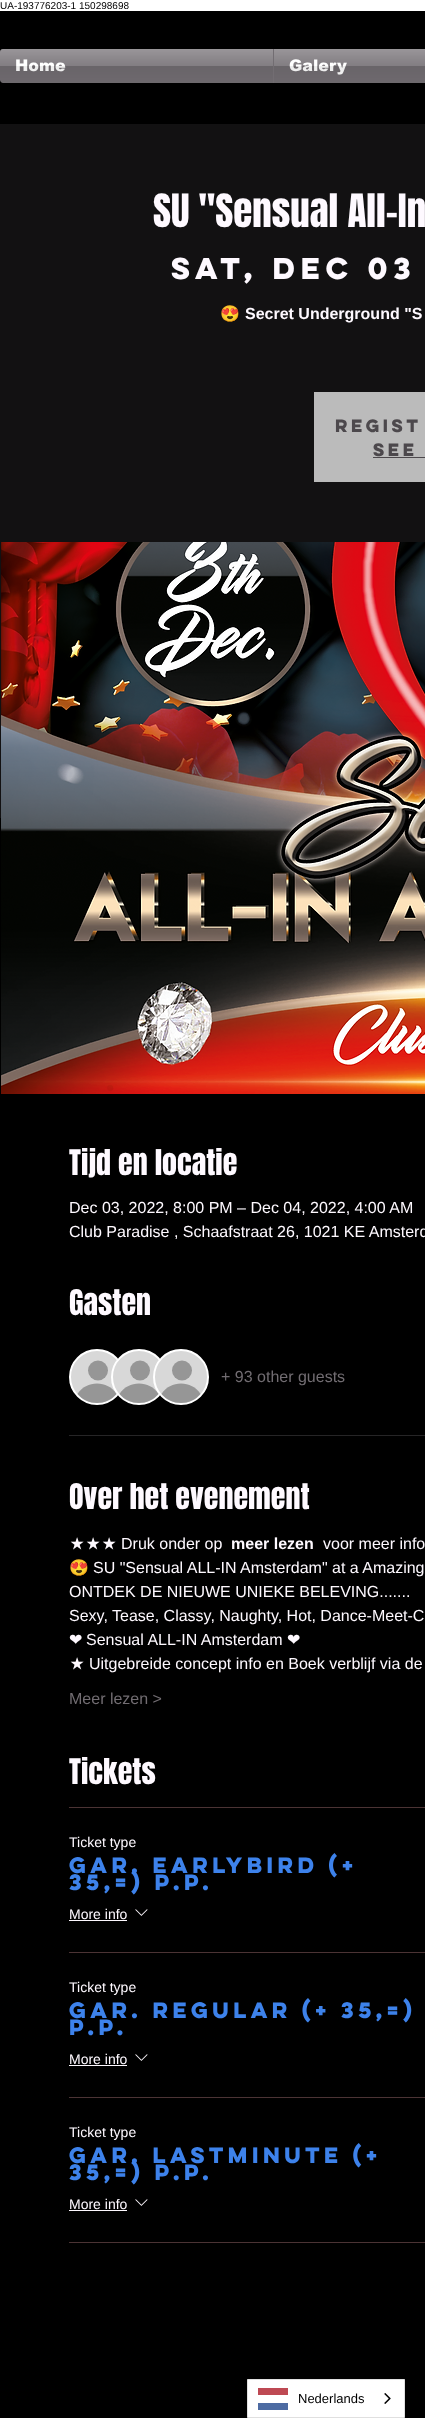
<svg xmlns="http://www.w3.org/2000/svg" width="425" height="2418">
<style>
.a{font:10px Liberation Sans;fill:#000}
.b{font:900 16px arial;fill:#fff}
.c{font:39px Anton;fill:#fef9ff}
.d{font:bold 27px 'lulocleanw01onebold';fill:#fef9ff}
.e{font:bold 16px Noto Color Emoji;fill:#fef9ff}
.f{font:bold 16px Liberation Sans;fill:#fef9ff}
.g{font:bold 16px 'lulocleanw01onebold';fill:#4c484c}
.h{font:30px Anton;fill:#fef9ff}
.i{font:16px Liberation Sans;fill:#fef9ff}
.j{font:16px Liberation Sans;fill:#726d72}
.k{font:16px Dotum;fill:#fef9ff}
.l{font:16px Noto Color Emoji;fill:#fef9ff}
.m{font:16px DejaVu Sans;fill:#fef9ff}
.n{font:14px Liberation Sans;fill:#fef9ff}
.o{font:bold 20px 'lulocleanw01onebold';fill:#3d82eb}
.p{font:13px Liberation Sans;fill:#000}
</style>
<rect width="100%" height="100%" fill="#fff"/>
<path fill="#000" d="M0 11h425v2407H0z"/>
<image href="1.png" x="0" y="49" width="3" height="34"/>
<path fill="#726d72" d="M3 49h270v34h-270c-1.5 0-3-1.5-3-3v-28c0-1.5 1.5-3 3-3z"/>
<path fill="#726d72" d="M273 49h152v34H273z"/>
<path fill="#121112" d="M0 124h425v694H0z"/>
<path fill="#bbb" d="M314 392h111v90H314z"/>
<path fill="#4c484c" d="M373 457h52v1H373z"/>
<image href="4.png" x="1" y="542" width="424" height="552"/>
<circle fill="#d8d8d8" stroke="#fff" stroke-width="2" cx="97" cy="1377" r="27"/>
<circle fill="#969696" cx="98" cy="1370.5" r="10"/>
<path fill="#969696" d="M116.5 1394c-10 12-29 12-39 0c8.5-14 30.5-14 39 0z"/>
<circle fill="#d8d8d8" stroke="#fff" stroke-width="2" cx="139" cy="1377" r="27"/>
<circle fill="#969696" cx="140" cy="1370.5" r="10"/>
<path fill="#969696" d="M158.5 1394c-10 12-29 12-39 0c8.5-14 30.5-14 39 0z"/>
<circle fill="#d8d8d8" stroke="#fff" stroke-width="2" cx="181" cy="1377" r="27"/>
<circle fill="#969696" cx="182" cy="1370.5" r="10"/>
<path fill="#969696" d="M200.5 1394c-10 12-29 12-39 0c8.5-14 30.5-14 39 0z"/>
<path fill="#262526" d="M69 1435h356v1H69z"/>
<path fill="#4b3334" d="M69 1807h356v1H69z"/>
<path fill="#4b3334" d="M69 1952h356v1H69z"/>
<path fill="#fef9ff" d="M69 1920h58v1H69z"/>
<image href="5.png" x="135" y="1909" width="13" height="7"/>
<path fill="#4b3334" d="M69 2097h356v1H69z"/>
<path fill="#fef9ff" d="M69 2065h58v1H69z"/>
<image href="5.png" x="135" y="2054" width="13" height="7"/>
<path fill="#4b3334" d="M69 2242h356v1H69z"/>
<path fill="#fef9ff" d="M69 2210h58v1H69z"/>
<image href="5.png" x="135" y="2199" width="13" height="7"/>
<path fill="#fff" stroke="#e0e0e0" d="M247.5 2379.5h157v38H247.5z"/>
<path fill="#be4953" d="M258 2388h30v7H258z"/>
<path fill="#4d6ba2" d="M258 2403h30v7H258z"/>
<image href="6.png" x="384" y="2393" width="7" height="11"/>
<text class="a" x="0" y="9">UA-193776203-1 150298698</text>
<text class="b" x="15" y="71">Home</text>
<image href="2.png" x="0" y="49" width="273" height="34"/>
<text class="b" x="289" y="71">Galery</text>
<image href="3.png" x="274" y="49" width="151" height="34"/>
<text class="c" x="153" y="227">SU "Sensual All-In</text>
<text class="d" x="171" y="279">Sat, Dec 03</text>
<text class="e" x="220" y="319">😍</text>
<text class="f" x="245" y="319">Secret Underground "S</text>
<text class="g" x="335" y="432">Regist</text>
<text class="g" x="373" y="456">See</text>
<text class="h" x="69" y="1175">Tijd en locatie</text>
<text class="i" x="69" y="1213">Dec 03, 2022, 8:00 PM – Dec 04, 2022, 4:00 AM</text>
<text class="i" x="69" y="1237">Club Paradise , Schaafstraat 26, 1021 KE Amsterd</text>
<text class="h" x="69" y="1315">Gasten</text>
<text class="j" x="221" y="1382">+ 93 other guests</text>
<text class="h" x="69" y="1509">Over het evenement</text>
<text class="k" x="69" y="1549">★★★</text>
<text class="i" x="121" y="1549">Druk onder op</text>
<text class="f" x="231" y="1549">meer lezen</text>
<text class="i" x="323" y="1549">voor meer info</text>
<text class="l" x="69" y="1573">😍</text>
<text class="i" x="93" y="1573">SU "Sensual ALL-IN Amsterdam" at a Amazing</text>
<text class="i" x="69" y="1597">ONTDEK DE NIEUWE UNIEKE BELEVING.......</text>
<text class="i" x="69" y="1621">Sexy, Tease, Classy, Naughty, Hot, Dance-Meet-C</text>
<text class="m" x="69" y="1645">❤</text>
<text class="i" x="86" y="1645">Sensual ALL-IN Amsterdam</text>
<text class="m" x="287" y="1645">❤</text>
<text class="k" x="69" y="1669">★</text>
<text class="i" x="89" y="1669">Uitgebreide concept info en Boek verblijf via de</text>
<text class="j" x="69" y="1704">Meer lezen &gt;</text>
<text class="h" x="69" y="1784">Tickets</text>
<text class="n" x="69" y="1847">Ticket type</text>
<text class="o" x="69" y="1873">Gar. Earlybird (+</text>
<text class="o" x="69" y="1890">35,=) P.P.</text>
<text class="n" x="69" y="1919">More info</text>
<text class="n" x="69" y="1992">Ticket type</text>
<text class="o" x="69" y="2018">Gar. Regular (+ 35,=)</text>
<text class="o" x="69" y="2035">P.P.</text>
<text class="n" x="69" y="2064">More info</text>
<text class="n" x="69" y="2137">Ticket type</text>
<text class="o" x="69" y="2163">Gar. Lastminute (+</text>
<text class="o" x="69" y="2180">35,=) P.P.</text>
<text class="n" x="69" y="2209">More info</text>
<text class="p" x="298" y="2403">Nederlands</text>
</svg>
